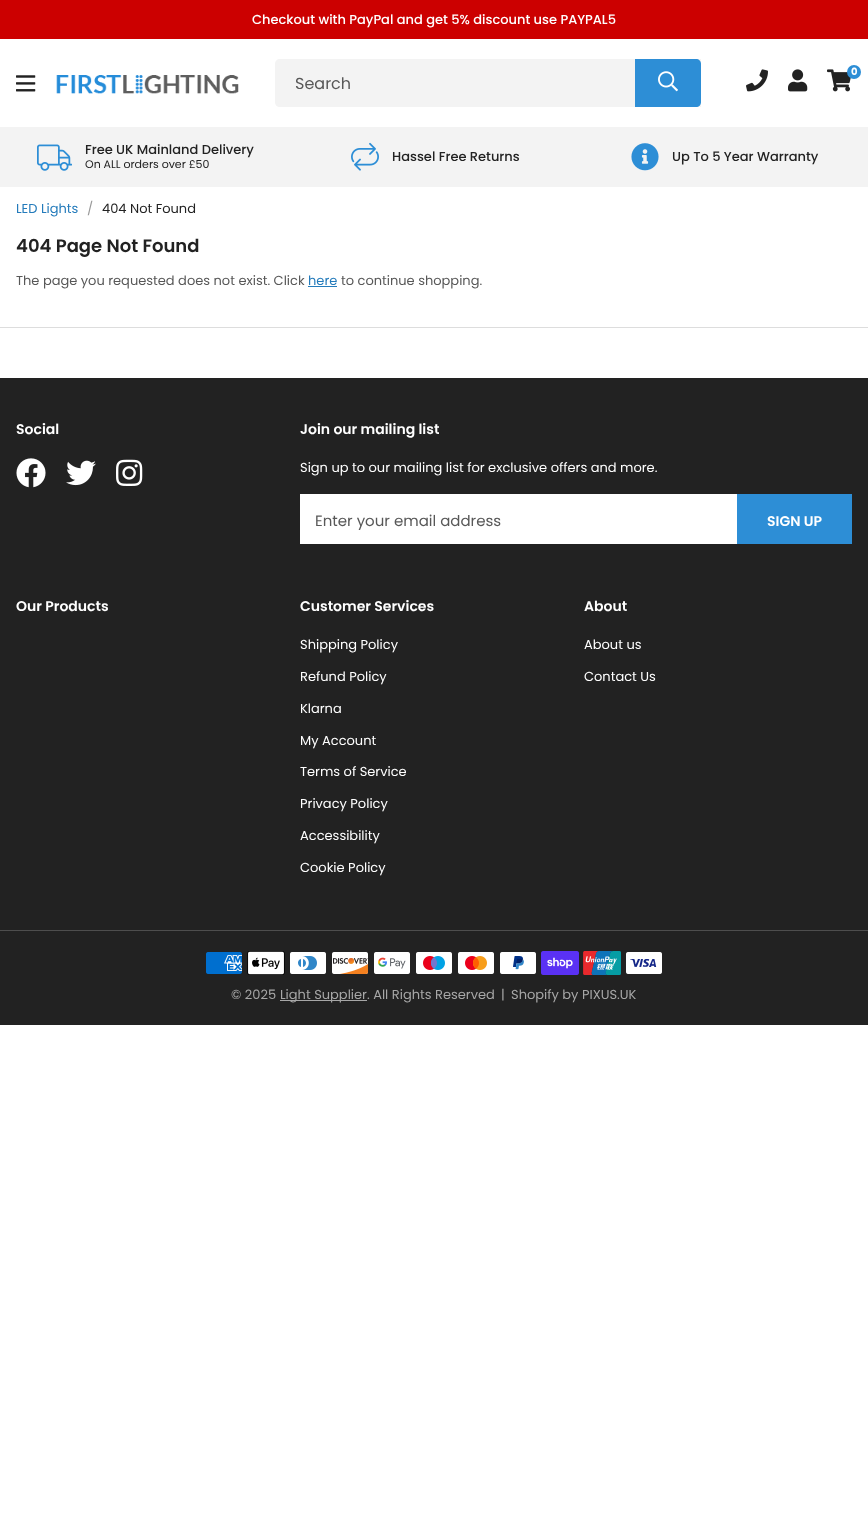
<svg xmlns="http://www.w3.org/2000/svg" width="868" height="1516">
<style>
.a{font:500 13px Poppins;fill:#fff}
.b{font:16px Poppins;fill:#585858}
.c{font:bold 10px Poppins;fill:#fff}
.d{font:500 13px Poppins;fill:#222}
.e{font:11px Poppins;fill:#222}
.f{font:13px Poppins;fill:#247bbb}
.g{font:13px Poppins;fill:#999}
.h{font:13px Poppins;fill:#222}
.i{font:600 18px Poppins;fill:#222}
.j{font:13px Poppins;fill:#585858}
.k{font:600 14px Poppins;fill:#fff}
.l{font:13px Poppins;fill:#fff}
.m{font:15px Poppins;fill:#585858}
.n{font:13px Poppins;fill:#a7a7a7}
</style>
<rect width="100%" height="100%" fill="#fff"/>
<path fill="#c00" d="M0 0h868v39H0z"/>
<image href="1.png" x="16" y="75" width="20" height="17"/>
<image href="2.png" x="56" y="75" width="183" height="19"/>
<path fill="#f3f3f3" d="M280 59h421v48h-421c-3 0-5-2-5-5v-38c0-3 2-5 5-5z"/>
<path fill="#2d8ed6" d="M635 59h61c3 0 5 2 5 5v38c0 3-2 5-5 5h-61z"/>
<image href="3.png" x="658" y="71" width="20" height="21"/>
<image href="4.png" x="746" y="69" width="22" height="23"/>
<image href="5.png" x="788" y="69" width="20" height="23"/>
<image href="6.png" x="827" y="69" width="24" height="23"/>
<circle fill="#2d8ed6" cx="854" cy="72" r="7"/>
<path fill="#f3f3f3" d="M0 127h868v60H0z"/>
<image href="7.png" x="37" y="144" width="35" height="27"/>
<image href="8.png" x="351" y="142" width="28" height="29"/>
<image href="9.png" x="631" y="143" width="28" height="28"/>
<path fill="#247bbb" d="M308 286h29v1H308z"/>
<path fill="#ddd" d="M0 327h868v1H0z"/>
<path fill="#222" d="M0 378h868v552H0z"/>
<image href="10.png" x="16" y="458" width="30" height="30"/>
<image href="11.png" x="66" y="460" width="30" height="26"/>
<image href="12.png" x="116" y="459" width="27" height="27"/>
<path fill="#fff" d="M300 494h437v50H300z"/>
<path fill="#2d8ed6" d="M737 494h115v50H737z"/>
<path fill="#222" d="M0 931h868v94H0z"/>
<path fill="#4e4e4e" d="M0 930h868v1H0z"/>
<image href="13.png" x="206" y="952" width="36" height="22"/>
<image href="14.png" x="247" y="951" width="38" height="24"/>
<image href="15.png" x="290" y="952" width="36" height="22"/>
<image href="16.png" x="332" y="952" width="36" height="22"/>
<image href="17.png" x="374" y="952" width="36" height="22"/>
<image href="18.png" x="416" y="952" width="36" height="22"/>
<image href="19.png" x="458" y="952" width="36" height="22"/>
<image href="20.png" x="500" y="952" width="36" height="22"/>
<image href="21.png" x="541" y="951" width="38" height="24"/>
<image href="22.png" x="583" y="951" width="38" height="24"/>
<image href="23.png" x="626" y="952" width="36" height="22"/>
<path fill="#a7a7a7" d="M280 1000h87v1H280z"/>
<text class="a" x="252" y="24">Checkout with PayPal and get 5% discount use PAYPAL5</text>
<text class="b" x="295" y="89">Search</text>
<text class="c" x="851" y="75">0</text>
<text class="d" x="85" y="154">Free UK Mainland Delivery</text>
<text class="e" x="85" y="168">On ALL orders over £50</text>
<text class="d" x="392" y="161">Hassel Free Returns</text>
<text class="d" x="672" y="161">Up To 5 Year Warranty</text>
<text class="f" x="16" y="213">LED Lights</text>
<text class="g" x="87" y="213">/</text>
<text class="h" x="102" y="213">404 Not Found</text>
<text class="i" x="16" y="252">404 Page Not Found</text>
<text class="j" x="16" y="285">The page you requested does not exist. Click</text>
<text class="f" x="308" y="285">here</text>
<text class="j" x="341" y="285">to continue shopping.</text>
<text class="k" x="16" y="434">Social</text>
<text class="k" x="300" y="434">Join our mailing list</text>
<text class="l" x="300" y="472">Sign up to our mailing list for exclusive offers and more.</text>
<text class="m" x="315" y="526">Enter your email address</text>
<text class="k" x="767" y="526">SIGN UP</text>
<text class="k" x="16" y="611">Our Products</text>
<text class="k" x="300" y="611">Customer Services</text>
<text class="l" x="300" y="649">Shipping Policy</text>
<text class="l" x="300" y="681">Refund Policy</text>
<text class="l" x="300" y="713">Klarna</text>
<text class="l" x="300" y="745">My Account</text>
<text class="l" x="300" y="776">Terms of Service</text>
<text class="l" x="300" y="808">Privacy Policy</text>
<text class="l" x="300" y="840">Accessibility</text>
<text class="l" x="300" y="872">Cookie Policy</text>
<text class="k" x="584" y="611">About</text>
<text class="l" x="584" y="649">About us</text>
<text class="l" x="584" y="681">Contact Us</text>
<text class="n" x="231" y="999">© 2025</text>
<text class="n" x="280" y="999">Light Supplier. All Rights Reserved</text>
<text class="n" x="501" y="999">|</text>
<text class="n" x="511" y="999">Shopify by PIXUS.UK</text>
</svg>
